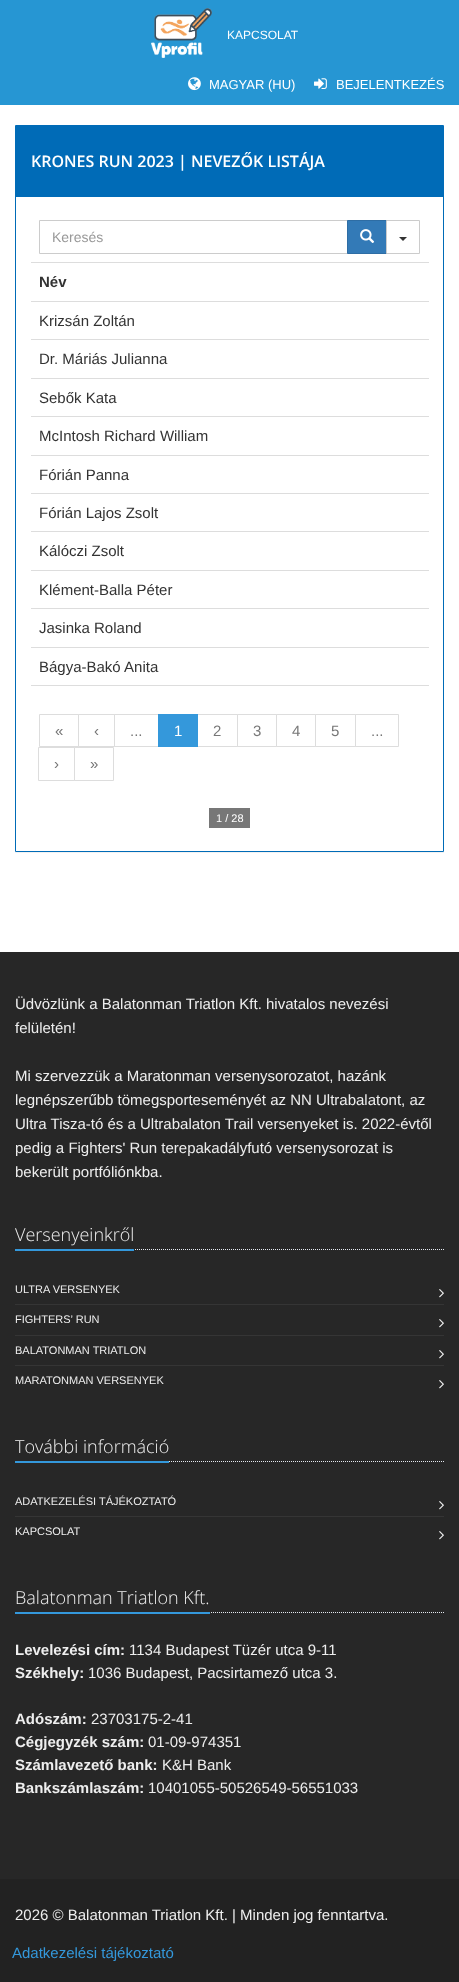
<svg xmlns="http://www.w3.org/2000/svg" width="459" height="1982">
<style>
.a{font:12px Liberation Sans;fill:#fff}
.b{font:13px Liberation Sans;fill:#fff}
.c{font:600 16px Open Sans;fill:#fff}
.d{font:14px Liberation Sans;fill:#999}
.e{font:bold 15px Liberation Sans;fill:#333}
.f{font:15px Liberation Sans;fill:#333}
.g{font:15px Liberation Sans;fill:#777}
.h{font:15px Liberation Sans;fill:#fff}
.i{font:11px Liberation Sans;fill:#fff}
.j{font:15px Liberation Sans;fill:#eee}
.k{font:300 18px Open Sans;fill:#eee}
.l{font:11px Liberation Sans;fill:#eee}
.m{font:bold 15px Liberation Sans;fill:#eee}
.n{font:15px Liberation Sans;fill:#3498db}
</style>
<defs>
<clipPath id="clip1"><path d="M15 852h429v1H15z"/></clipPath>
</defs>
<rect width="100%" height="100%" fill="#fff"/>
<path fill="#2696d3" d="M0 0h459v105H0z"/>
<image href="1.png" x="151" y="8" width="61" height="50"/>
<image href="2.png" x="188" y="77" width="13" height="14"/>
<image href="3.png" x="314" y="78" width="13" height="11"/>
<g clip-path="url(#clip1)">
<path fill="#0000000d" filter="blur(0.5px)" d="M15 126h429v727H15z"/>
</g>
<path fill="none" stroke="#006bb7" d="M15.5 125.5h428v726H15.5z"/>
<path fill="#006bb7" d="M16 126h427v71H16z"/>
<path fill="none" stroke="#ccc" d="M39.5 220.5h308v33H39.5z"/>
<path fill="#337ab7" stroke="#2e6da4" d="M347.5 220.5h39v33H347.5z"/>
<image href="4.png" x="360" y="229" width="15" height="14"/>
<path fill="none" stroke="#ccc" d="M386.5 220.5h33v33H386.5z"/>
<path fill="#333" d="M399 237h8l-4 4z"/>
<path fill="#ddd" d="M31 262h398v1H31z"/>
<path fill="#ddd" d="M31 301h398v1H31z"/>
<path fill="#ddd" d="M31 339h398v1H31z"/>
<path fill="#ddd" d="M31 378h398v1H31z"/>
<path fill="#ddd" d="M31 416h398v1H31z"/>
<path fill="#ddd" d="M31 455h398v1H31z"/>
<path fill="#ddd" d="M31 493h398v1H31z"/>
<path fill="#ddd" d="M31 531h398v1H31z"/>
<path fill="#ddd" d="M31 570h398v1H31z"/>
<path fill="#ddd" d="M31 608h398v1H31z"/>
<path fill="#ddd" d="M31 647h398v1H31z"/>
<path fill="#ddd" d="M31 685h398v1H31z"/>
<path fill="none" stroke="#ddd" d="M39.5 714.5h39v32H39.5z"/>
<path fill="none" stroke="#ddd" d="M78.5 714.5h36v32H78.5z"/>
<path fill="none" stroke="#ddd" d="M114.5 714.5h44v32H114.5z"/>
<path fill="none" stroke="#ddd" d="M197.5 714.5h40v32H197.5z"/>
<path fill="#3498db" d="M158 714h40v33H158z"/>
<path fill="none" stroke="#ddd" d="M237.5 714.5h39v32H237.5z"/>
<path fill="none" stroke="#ddd" d="M276.5 714.5h39v32H276.5z"/>
<path fill="none" stroke="#ddd" d="M315.5 714.5h40v32H315.5z"/>
<path fill="none" stroke="#ddd" d="M355.5 714.5h43v32H355.5z"/>
<path fill="none" stroke="#ddd" d="M38.5 747.5h36v33H38.5z"/>
<path fill="none" stroke="#ddd" d="M74.5 747.5h39v33H74.5z"/>
<path fill="#777" d="M209 808h41v20H209z"/>
<path fill="#272727" d="M0 952h459v927H0z"/>
<path fill="none" stroke="#e4e9f0" stroke-dasharray="1 1" d="M15 1249.5h429"/>
<path fill="#3498db" d="M15 1249h119v2H15z"/>
<image href="5.png" x="439" y="1289" width="5" height="9"/>
<path fill="#353535" d="M15 1304h429v1H15z"/>
<image href="5.png" x="439" y="1319" width="5" height="9"/>
<path fill="#353535" d="M15 1335h429v1H15z"/>
<image href="5.png" x="439" y="1350" width="5" height="9"/>
<path fill="#353535" d="M15 1365h429v1H15z"/>
<image href="5.png" x="439" y="1380" width="5" height="9"/>
<path fill="none" stroke="#e4e9f0" stroke-dasharray="1 1" d="M15 1461.5h429"/>
<path fill="#3498db" d="M15 1461h154v2H15z"/>
<image href="5.png" x="439" y="1501" width="5" height="9"/>
<path fill="#353535" d="M15 1516h429v1H15z"/>
<image href="5.png" x="439" y="1531" width="5" height="9"/>
<path fill="none" stroke="#e4e9f0" stroke-dasharray="1 1" d="M15 1612.5h429"/>
<path fill="#3498db" d="M15 1612h195v2H15z"/>
<path fill="#222" d="M0 1879h459v103H0z"/>
<text class="a" x="227" y="39">KAPCSOLAT</text>
<text class="b" x="209" y="89">MAGYAR (HU)</text>
<text class="b" x="336" y="89">BEJELENTKEZÉS</text>
<text class="c" x="31" y="167">KRONES RUN 2023 | NEVEZŐK LISTÁJA</text>
<text class="d" x="52" y="242">Keresés</text>
<text class="e" x="39" y="287">Név</text>
<text class="f" x="39" y="326">Krizsán Zoltán</text>
<text class="f" x="39" y="364">Dr. Máriás Julianna</text>
<text class="f" x="39" y="403">Sebők Kata</text>
<text class="f" x="39" y="441">McIntosh Richard William</text>
<text class="f" x="39" y="480">Fórián Panna</text>
<text class="f" x="39" y="518">Fórián Lajos Zsolt</text>
<text class="f" x="39" y="556">Kálóczi Zsolt</text>
<text class="f" x="39" y="595">Klément-Balla Péter</text>
<text class="f" x="39" y="633">Jasinka Roland</text>
<text class="f" x="39" y="672">Bágya-Bakó Anita</text>
<text class="g" x="55" y="736">«</text>
<text class="g" x="94" y="736">‹</text>
<text class="g" x="130" y="736">...</text>
<text class="h" x="174" y="736">1</text>
<text class="g" x="213" y="736">2</text>
<text class="g" x="253" y="736">3</text>
<text class="g" x="292" y="736">4</text>
<text class="g" x="331" y="736">5</text>
<text class="g" x="371" y="736">...</text>
<text class="g" x="54" y="769">›</text>
<text class="g" x="90" y="769">»</text>
<text class="i" x="216" y="822">1 / 28</text>
<text class="j" x="15" y="1009">Üdvözlünk a Balatonman Triatlon Kft. hivatalos nevezési</text>
<text class="j" x="15" y="1033">felületén!</text>
<text class="j" x="15" y="1081">Mi szervezzük a Maratonman versenysorozatot, hazánk</text>
<text class="j" x="15" y="1105">legnépszerűbb tömegsporteseményét az NN Ultrabalatont, az</text>
<text class="j" x="15" y="1129">Ultra Tisza-tó és a Ultrabalaton Trail versenyeket is. 2022-évtől</text>
<text class="j" x="15" y="1153">pedig a Fighters' Run terepakadályfutó versenysorozat is</text>
<text class="j" x="15" y="1177">bekerült portfóliónkba.</text>
<text class="k" x="15" y="1241">Versenyeinkről</text>
<text class="l" x="15" y="1293">ULTRA VERSENYEK</text>
<text class="l" x="15" y="1323">FIGHTERS’ RUN</text>
<text class="l" x="15" y="1354">BALATONMAN TRIATLON</text>
<text class="l" x="15" y="1384">MARATONMAN VERSENYEK</text>
<text class="k" x="15" y="1453">További információ</text>
<text class="l" x="15" y="1505">ADATKEZELÉSI TÁJÉKOZTATÓ</text>
<text class="l" x="15" y="1535">KAPCSOLAT</text>
<text class="k" x="15" y="1604">Balatonman Triatlon Kft.</text>
<text class="m" x="15" y="1655">Levelezési cím:</text>
<text class="j" x="129" y="1655">1134 Budapest Tüzér utca 9-11</text>
<text class="m" x="15" y="1678">Székhely:</text>
<text class="j" x="88" y="1678">1036 Budapest, Pacsirtamező utca 3.</text>
<text class="m" x="15" y="1724">Adószám:</text>
<text class="j" x="91" y="1724">23703175-2-41</text>
<text class="m" x="15" y="1747">Cégjegyzék szám:</text>
<text class="j" x="148" y="1747">01-09-974351</text>
<text class="m" x="15" y="1770">Számlavezető bank:</text>
<text class="j" x="162" y="1770">K&amp;H Bank</text>
<text class="m" x="15" y="1793">Bankszámlaszám:</text>
<text class="j" x="148" y="1793">10401055-50526549-56551033</text>
<text class="j" x="15" y="1920">2026 © Balatonman Triatlon Kft. | Minden jog fenntartva.</text>
<text class="n" x="12" y="1958">Adatkezelési tájékoztató</text>
</svg>
